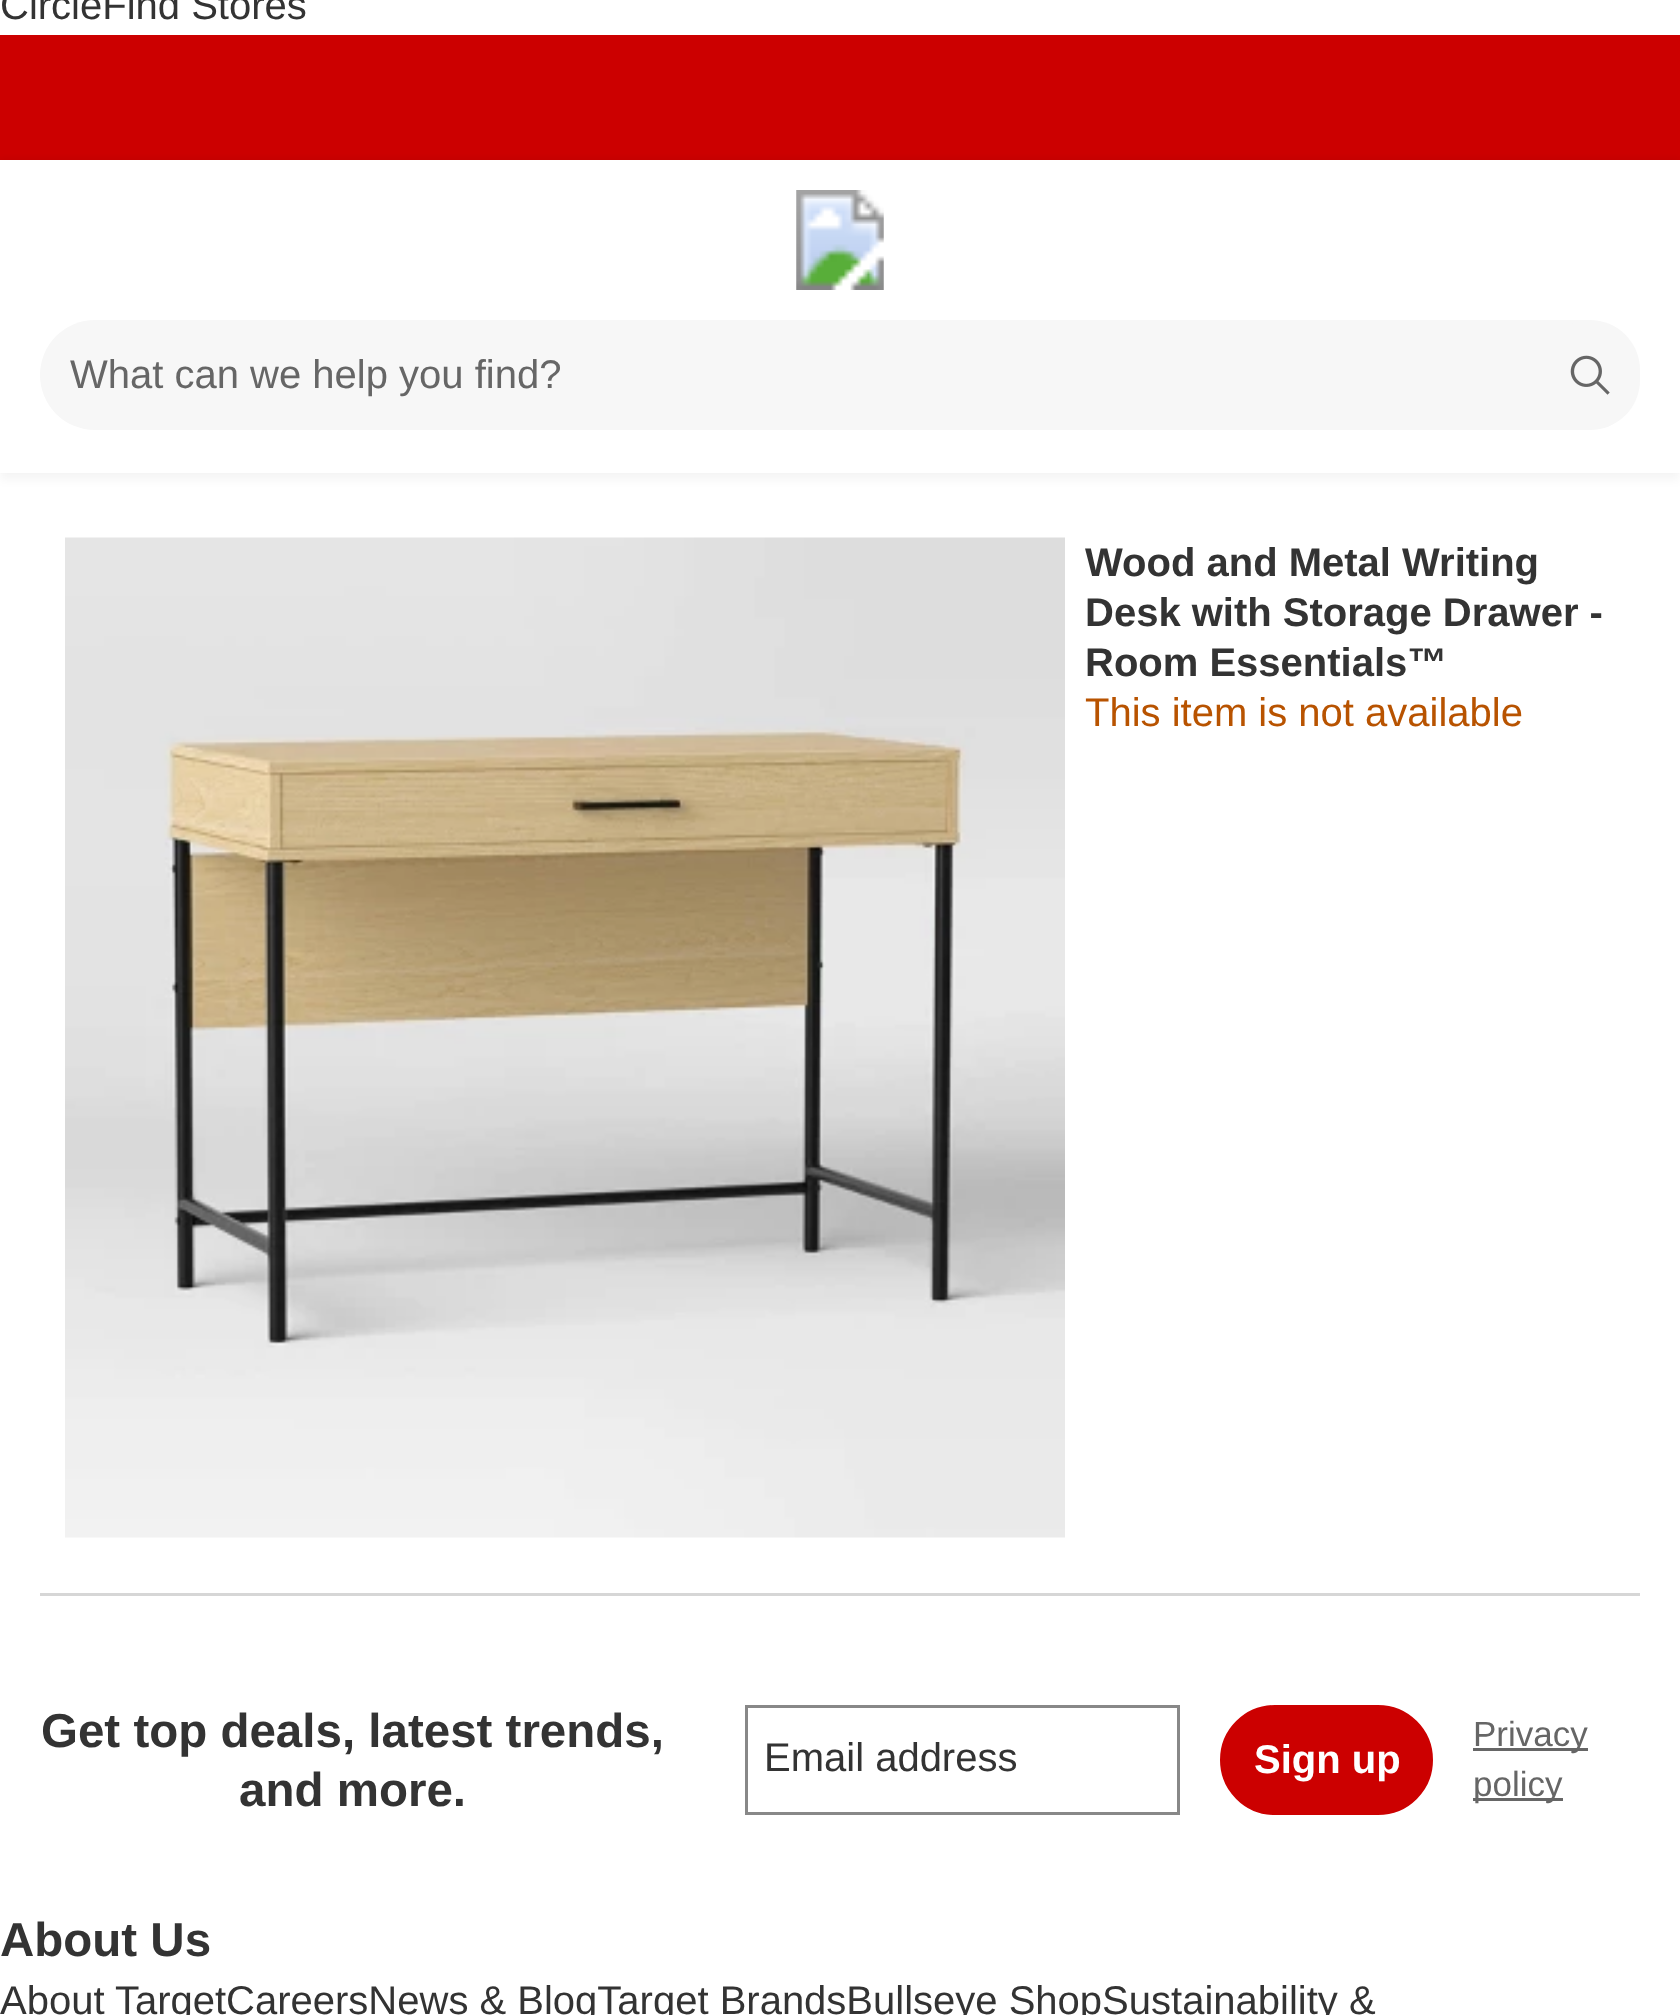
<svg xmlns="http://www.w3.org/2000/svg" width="1680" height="2015">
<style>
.a{font:40px Liberation Sans;fill:#333}
.b{font:40px Liberation Sans;fill:#666}
.c{font:bold 40px Liberation Sans;fill:#333}
.d{font:40px Liberation Sans;fill:#b85300}
.e{font:bold 47.5px Liberation Sans;fill:#333}
.f{font:bold 40px Liberation Sans;fill:#fff}
.g{font:35px Liberation Sans;fill:#666}
</style>
<rect width="100%" height="100%" fill="#fff"/>
<path fill="#c00" d="M0 35h1680v125H0z"/>
<path fill="#0000000a" filter="blur(5px)" d="M0 168h1680v312H0z"/>
<path fill="#0000000a" filter="blur(2.5px)" d="M0 158h1680v312H0z"/>
<path fill="#fff" d="M0 160h1680v313H0z"/>
<image href="1.png" x="796" y="190" width="88" height="100"/>
<rect fill="#f7f7f7" x="40" y="320" width="1600" height="110" rx="55"/>
<rect fill="#f7f7f7" x="1540" y="320" width="100" height="110" rx="50"/>
<image href="2.png" x="1570" y="355" width="40" height="40"/>
<image href="3.png" x="65" y="537" width="1000" height="1001"/>
<path fill="#d6d6d6" d="M40 1593h1600v3H40z"/>
<path fill="none" stroke="#888" stroke-width="3" d="M746.5 1706.5h432v107H746.5z"/>
<rect fill="#c00" stroke="#c00" stroke-width="3" x="1221.5" y="1706.5" width="210" height="107" rx="53.5"/>
<path fill="#666" d="M1473 1748h115v3H1473z"/>
<path fill="#666" d="M1473 1798h90v3H1473z"/>
<text class="a" x="0" y="19">CircleFind Stores</text>
<text class="b" x="70" y="388">What can we help you find?</text>
<text class="c" x="1085" y="576">Wood and Metal Writing</text>
<text class="c" x="1085" y="626">Desk with Storage Drawer -</text>
<text class="c" x="1085" y="676">Room Essentials™</text>
<text class="d" x="1085" y="726">This item is not available</text>
<text class="e" x="41" y="1747">Get top deals, latest trends,</text>
<text class="e" x="239" y="1806">and more.</text>
<text class="a" x="764" y="1771">Email address</text>
<text class="f" x="1254" y="1773">Sign up</text>
<text class="g" x="1473" y="1746">Privacy</text>
<text class="g" x="1473" y="1796">policy</text>
<text class="e" x="0" y="1956">About Us</text>
<text class="a" x="0" y="2014">About TargetCareersNews &amp; BlogTarget BrandsBullseye ShopSustainability &amp;</text>
</svg>
